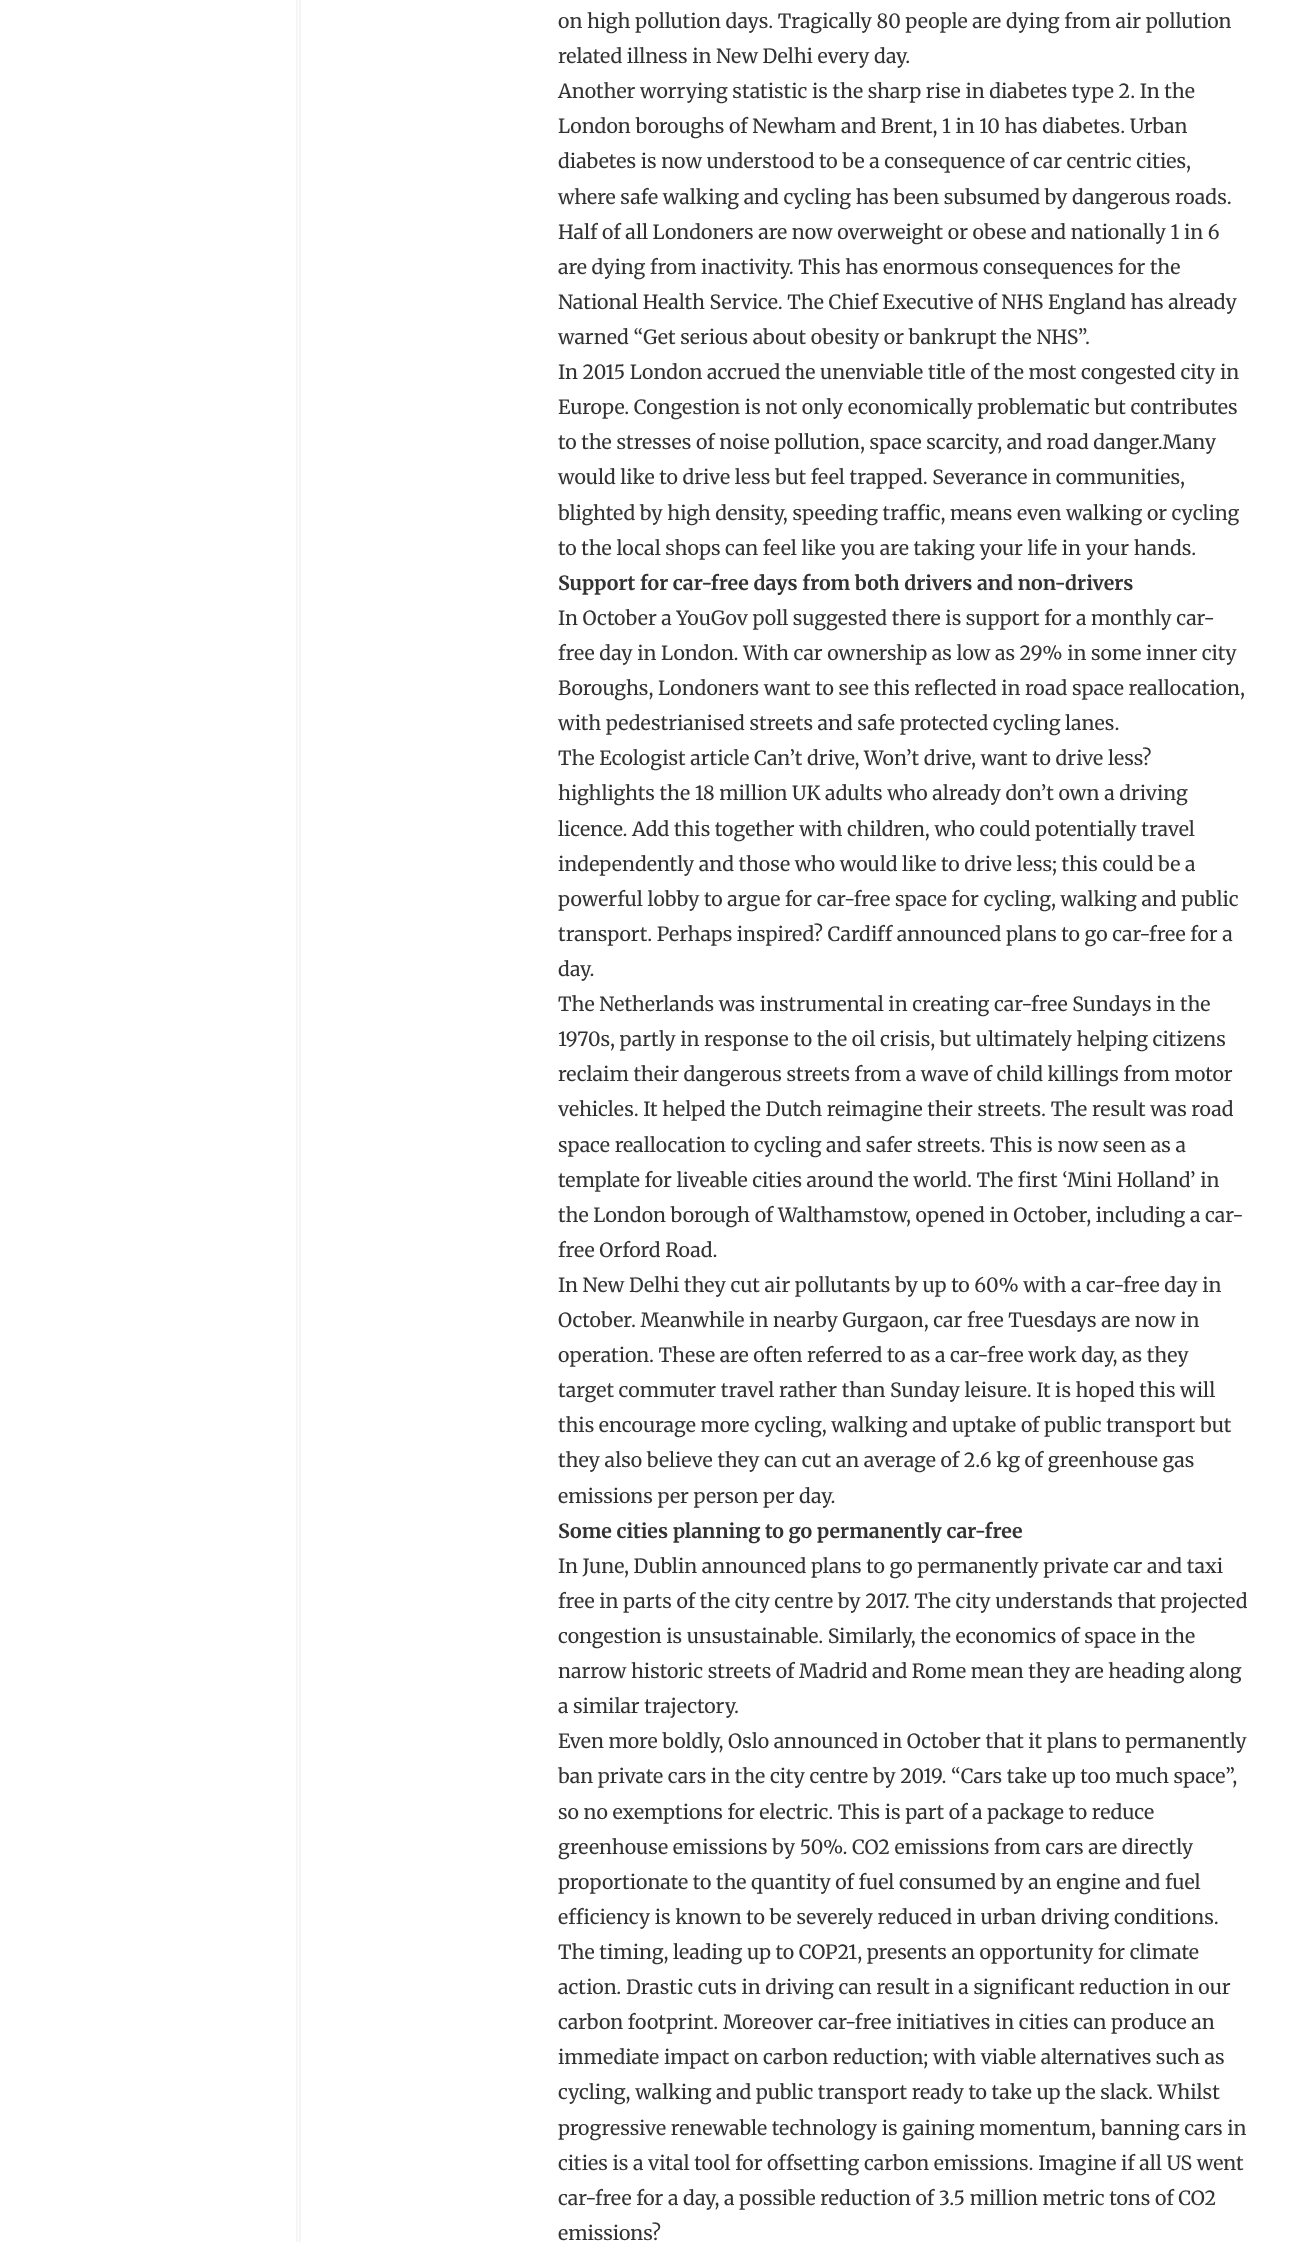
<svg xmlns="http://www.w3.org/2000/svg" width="1298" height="2242">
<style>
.a{font:19.5px Merriweather;fill:#333}
.b{font:bold 19.5px Merriweather;fill:#333}
</style>
<rect width="100%" height="100%" fill="#fff"/>
<path fill="#f5f5f5" d="M296 0h2v2242H296z"/>
<path fill="#f5f5f5" d="M299 0h2v2242H299z"/>
<text class="a" x="558" y="28">on high pollution days. Tragically 80 people are dying from air pollution</text>
<text class="a" x="558" y="63">related illness in New Delhi every day.</text>
<text class="a" x="558" y="98">Another worrying statistic is the sharp rise in diabetes type 2. In the</text>
<text class="a" x="558" y="133">London boroughs of Newham and Brent, 1 in 10 has diabetes. Urban</text>
<text class="a" x="558" y="168">diabetes is now understood to be a consequence of car centric cities,</text>
<text class="a" x="558" y="204">where safe walking and cycling has been subsumed by dangerous roads.</text>
<text class="a" x="558" y="239">Half of all Londoners are now overweight or obese and nationally 1 in 6</text>
<text class="a" x="558" y="274">are dying from inactivity. This has enormous consequences for the</text>
<text class="a" x="558" y="309">National Health Service. The Chief Executive of NHS England has already</text>
<text class="a" x="558" y="344">warned “Get serious about obesity or bankrupt the NHS”.</text>
<text class="a" x="558" y="379">In 2015 London accrued the unenviable title of the most congested city in</text>
<text class="a" x="558" y="414">Europe. Congestion is not only economically problematic but contributes</text>
<text class="a" x="558" y="449">to the stresses of noise pollution, space scarcity, and road danger.Many</text>
<text class="a" x="558" y="484">would like to drive less but feel trapped. Severance in communities,</text>
<text class="a" x="558" y="520">blighted by high density, speeding traffic, means even walking or cycling</text>
<text class="a" x="558" y="555">to the local shops can feel like you are taking your life in your hands.</text>
<text class="b" x="558" y="590">Support for car-free days from both drivers and non-drivers</text>
<text class="a" x="558" y="625">In October a YouGov poll suggested there is support for a monthly car-</text>
<text class="a" x="558" y="660">free day in London. With car ownership as low as 29% in some inner city</text>
<text class="a" x="558" y="695">Boroughs, Londoners want to see this reflected in road space reallocation,</text>
<text class="a" x="558" y="730">with pedestrianised streets and safe protected cycling lanes.</text>
<text class="a" x="558" y="765">The Ecologist article Can’t drive, Won’t drive, want to drive less?</text>
<text class="a" x="558" y="800">highlights the 18 million UK adults who already don’t own a driving</text>
<text class="a" x="558" y="836">licence. Add this together with children, who could potentially travel</text>
<text class="a" x="558" y="871">independently and those who would like to drive less; this could be a</text>
<text class="a" x="558" y="906">powerful lobby to argue for car-free space for cycling, walking and public</text>
<text class="a" x="558" y="941">transport. Perhaps inspired? Cardiff announced plans to go car-free for a</text>
<text class="a" x="558" y="976">day.</text>
<text class="a" x="558" y="1011">The Netherlands was instrumental in creating car-free Sundays in the</text>
<text class="a" x="558" y="1046">1970s, partly in response to the oil crisis, but ultimately helping citizens</text>
<text class="a" x="558" y="1081">reclaim their dangerous streets from a wave of child killings from motor</text>
<text class="a" x="558" y="1116">vehicles. It helped the Dutch reimagine their streets. The result was road</text>
<text class="a" x="558" y="1152">space reallocation to cycling and safer streets. This is now seen as a</text>
<text class="a" x="558" y="1187">template for liveable cities around the world. The first ‘Mini Holland’ in</text>
<text class="a" x="558" y="1222">the London borough of Walthamstow, opened in October, including a car-</text>
<text class="a" x="558" y="1257">free Orford Road.</text>
<text class="a" x="558" y="1292">In New Delhi they cut air pollutants by up to 60% with a car-free day in</text>
<text class="a" x="558" y="1327">October. Meanwhile in nearby Gurgaon, car free Tuesdays are now in</text>
<text class="a" x="558" y="1362">operation. These are often referred to as a car-free work day, as they</text>
<text class="a" x="558" y="1397">target commuter travel rather than Sunday leisure. It is hoped this will</text>
<text class="a" x="558" y="1432">this encourage more cycling, walking and uptake of public transport but</text>
<text class="a" x="558" y="1467">they also believe they can cut an average of 2.6 kg of greenhouse gas</text>
<text class="a" x="558" y="1503">emissions per person per day.</text>
<text class="b" x="558" y="1538">Some cities planning to go permanently car-free</text>
<text class="a" x="558" y="1573">In June, Dublin announced plans to go permanently private car and taxi</text>
<text class="a" x="558" y="1608">free in parts of the city centre by 2017. The city understands that projected</text>
<text class="a" x="558" y="1643">congestion is unsustainable. Similarly, the economics of space in the</text>
<text class="a" x="558" y="1678">narrow historic streets of Madrid and Rome mean they are heading along</text>
<text class="a" x="558" y="1713">a similar trajectory.</text>
<text class="a" x="558" y="1748">Even more boldly, Oslo announced in October that it plans to permanently</text>
<text class="a" x="558" y="1783">ban private cars in the city centre by 2019. “Cars take up too much space”,</text>
<text class="a" x="558" y="1819">so no exemptions for electric. This is part of a package to reduce</text>
<text class="a" x="558" y="1854">greenhouse emissions by 50%. CO2 emissions from cars are directly</text>
<text class="a" x="558" y="1889">proportionate to the quantity of fuel consumed by an engine and fuel</text>
<text class="a" x="558" y="1924">efficiency is known to be severely reduced in urban driving conditions.</text>
<text class="a" x="558" y="1959">The timing, leading up to COP21, presents an opportunity for climate</text>
<text class="a" x="558" y="1994">action. Drastic cuts in driving can result in a significant reduction in our</text>
<text class="a" x="558" y="2029">carbon footprint. Moreover car-free initiatives in cities can produce an</text>
<text class="a" x="558" y="2064">immediate impact on carbon reduction; with viable alternatives such as</text>
<text class="a" x="558" y="2099">cycling, walking and public transport ready to take up the slack. Whilst</text>
<text class="a" x="558" y="2135">progressive renewable technology is gaining momentum, banning cars in</text>
<text class="a" x="558" y="2170">cities is a vital tool for offsetting carbon emissions. Imagine if all US went</text>
<text class="a" x="558" y="2205">car-free for a day, a possible reduction of 3.5 million metric tons of CO2</text>
<text class="a" x="558" y="2240">emissions?</text>
</svg>
